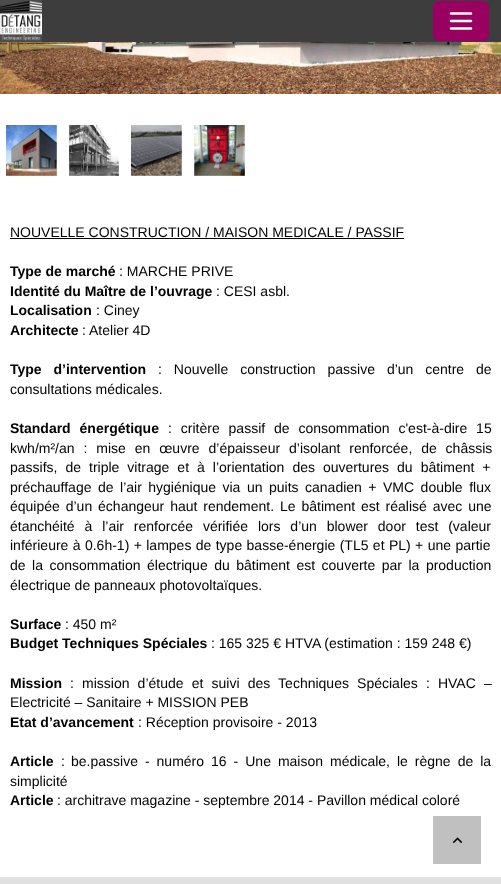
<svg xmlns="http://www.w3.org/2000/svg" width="501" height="884">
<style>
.a{font:14px Liberation Sans;fill:#000}
.b{font:bold 14px Liberation Sans;fill:#000}
</style>
<rect width="100%" height="100%" fill="#fff"/>
<path fill="#3d3d3d" d="M0 0h501v42H0z"/>
<image href="1.png" x="0" y="0" width="42" height="42"/>
<rect fill="#9a005f" stroke="#9a005f" x="433.5" y="1.5" width="55" height="39" rx="5.5"/>
<image href="2.png" x="449" y="12" width="24" height="18"/>
<image href="3.png" x="0" y="42" width="501" height="52"/>
<image href="4.png" x="6" y="125" width="51" height="51"/>
<image href="5.png" x="69" y="125" width="50" height="51"/>
<image href="6.png" x="131" y="125" width="51" height="51"/>
<image href="7.png" x="194" y="125" width="51" height="51"/>
<path fill="#000" d="M10 238h394v1H10z"/>
<path fill="#c0c0c0" d="M433 816h48v48H433z"/>
<image href="8.png" x="452" y="837" width="11" height="7"/>
<path fill="#e0e0e0" d="M0 877h501v7H0z"/>
<text class="a" x="10" y="237">NOUVELLE CONSTRUCTION / MAISON MEDICALE / PASSIF</text>
<text class="b" x="10" y="276">Type de marché</text>
<text class="a" x="119" y="276">: MARCHE PRIVE</text>
<text class="b" x="10" y="296">Identité du Maître de l’ouvrage</text>
<text class="a" x="216" y="296">: CESI asbl.</text>
<text class="b" x="10" y="315">Localisation</text>
<text class="a" x="96" y="315">: Ciney</text>
<text class="b" x="10" y="335">Architecte</text>
<text class="a" x="82" y="335">: Atelier 4D</text>
<text class="b" x="10" y="374" word-spacing="8">Type d’intervention</text>
<text class="a" x="158" y="374" word-spacing="8">: Nouvelle construction passive d’un centre de</text>
<text class="a" x="10" y="394">consultations médicales.</text>
<text class="b" x="10" y="433" word-spacing="5">Standard énergétique</text>
<text class="a" x="168" y="433" word-spacing="5">: critère passif de consommation c'est-à-dire 15</text>
<text class="a" x="10" y="453" word-spacing="5">kwh/m²/an : mise en œuvre d’épaisseur d’isolant renforcée, de châssis</text>
<text class="a" x="10" y="472" word-spacing="4.1">passifs, de triple vitrage et à l’orientation des ouvertures du bâtiment +</text>
<text class="a" x="10" y="492" word-spacing="2.6">préchauffage de l’air hygiénique via un puits canadien + VMC double flux</text>
<text class="a" x="10" y="511" word-spacing="2">équipée d’un échangeur haut rendement. Le bâtiment est réalisé avec une</text>
<text class="a" x="10" y="531" word-spacing="6">étanchéité à l’air renforcée vérifiée lors d’un blower door test (valeur</text>
<text class="a" x="10" y="550" word-spacing="0.5">inférieure à 0.6h-1) + lampes de type basse-énergie (TL5 et PL) + une partie</text>
<text class="a" x="10" y="570" word-spacing="2.6">de la consommation électrique du bâtiment est couverte par la production</text>
<text class="a" x="10" y="590">électrique de panneaux photovoltaïques.</text>
<text class="b" x="10" y="629">Surface</text>
<text class="a" x="65" y="629">: 450 m²</text>
<text class="b" x="10" y="648">Budget Techniques Spéciales</text>
<text class="a" x="211" y="648">: 165 325 € HTVA (estimation : 159 248 €)</text>
<text class="b" x="10" y="688">Mission</text>
<text class="a" x="70" y="688" word-spacing="4.25">: mission d’étude et suivi des Techniques Spéciales : HVAC –</text>
<text class="a" x="10" y="707">Electricité – Sanitaire + MISSION PEB</text>
<text class="b" x="10" y="727">Etat d’avancement</text>
<text class="a" x="138" y="727">: Réception provisoire - 2013</text>
<text class="b" x="10" y="766">Article</text>
<text class="a" x="61" y="766">:</text>
<text class="a" x="71" y="766" word-spacing="3.1">be.passive - numéro 16 - Une maison médicale, le règne de la</text>
<text class="a" x="10" y="786">simplicité</text>
<text class="b" x="10" y="805">Article</text>
<text class="a" x="57" y="805">: architrave magazine - septembre 2014 - Pavillon médical coloré</text>
</svg>
